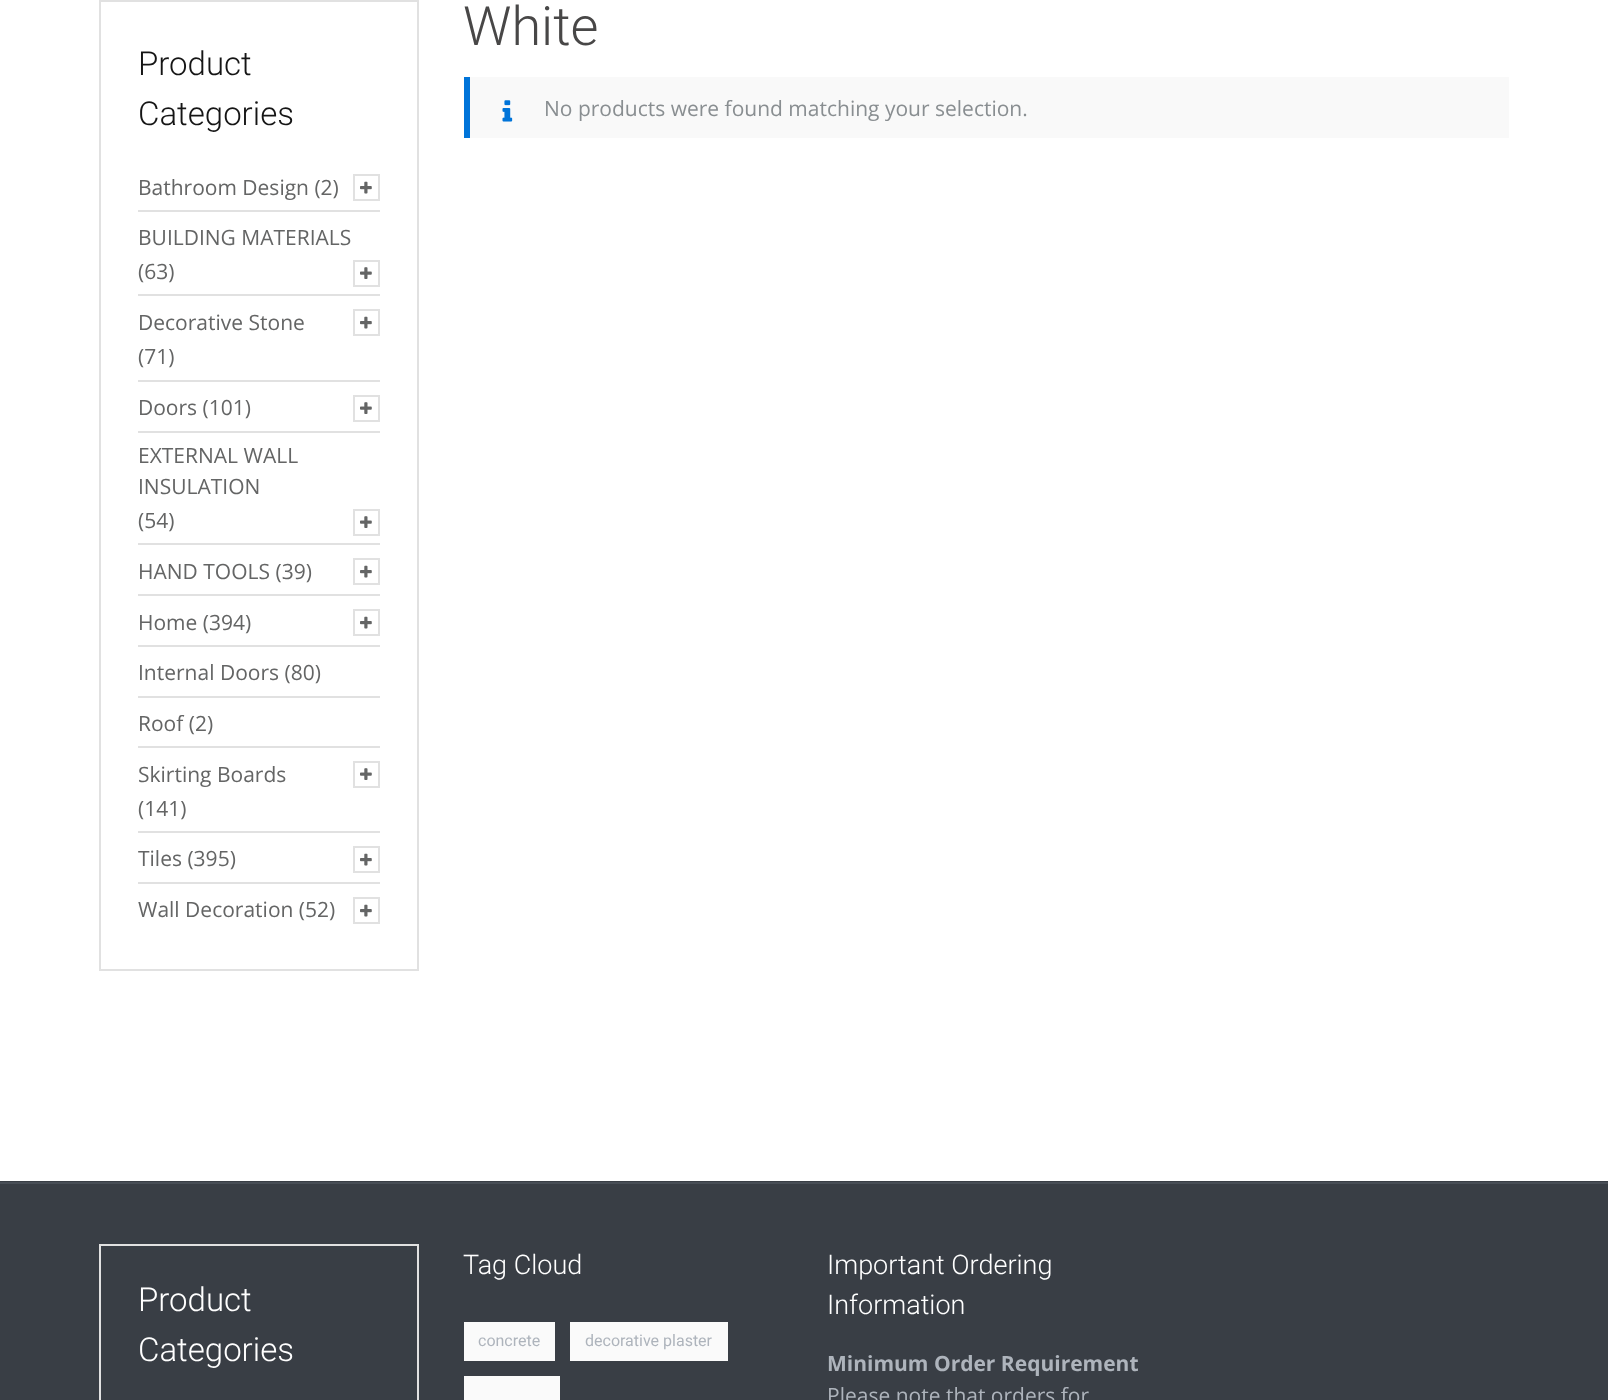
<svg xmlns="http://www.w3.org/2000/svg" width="1608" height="1400">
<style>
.a{font:300 33px Roboto;fill:#151515}
.b{font:21px Open Sans;fill:#646565}
.c{font:300 54px Roboto;fill:#484747}
.d{font:21px Open Sans;fill:#898e91}
.e{font:300 33px Roboto;fill:#fff}
.f{font:300 27px Roboto;fill:#fff}
.g{font:16px Roboto;fill:#aeb4bc}
.h{font:bold 21px Open Sans;fill:#aeb4bc}
.i{font:21px Open Sans;fill:#aeb4bc}
</style>
<rect width="100%" height="100%" fill="#fff"/>
<path fill="none" stroke="#e1e1e1" stroke-width="2" d="M100 1h318v969H100z"/>
<path fill="#e1e1e1" d="M138 210h242v2H138z"/>
<path fill="none" stroke="#e1e1e1" stroke-width="2" d="M354 175h25v25H354z"/>
<image href="1.png" x="360" y="181" width="12" height="13"/>
<path fill="#e1e1e1" d="M138 294h242v2H138z"/>
<path fill="none" stroke="#e1e1e1" stroke-width="2" d="M354 261h25v25H354z"/>
<image href="2.png" x="360" y="267" width="12" height="12"/>
<path fill="#e1e1e1" d="M138 380h242v2H138z"/>
<path fill="none" stroke="#e1e1e1" stroke-width="2" d="M354 310h25v25H354z"/>
<image href="1.png" x="360" y="316" width="12" height="13"/>
<path fill="#e1e1e1" d="M138 431h242v2H138z"/>
<path fill="none" stroke="#e1e1e1" stroke-width="2" d="M354 396h25v25H354z"/>
<image href="2.png" x="360" y="402" width="12" height="12"/>
<path fill="#e1e1e1" d="M138 543h242v2H138z"/>
<path fill="none" stroke="#e1e1e1" stroke-width="2" d="M354 510h25v25H354z"/>
<image href="2.png" x="360" y="516" width="12" height="12"/>
<path fill="#e1e1e1" d="M138 594h242v2H138z"/>
<path fill="none" stroke="#e1e1e1" stroke-width="2" d="M354 559h25v25H354z"/>
<image href="1.png" x="360" y="565" width="12" height="13"/>
<path fill="#e1e1e1" d="M138 645h242v2H138z"/>
<path fill="none" stroke="#e1e1e1" stroke-width="2" d="M354 610h25v25H354z"/>
<image href="1.png" x="360" y="616" width="12" height="13"/>
<path fill="#e1e1e1" d="M138 696h242v2H138z"/>
<path fill="#e1e1e1" d="M138 746h242v2H138z"/>
<path fill="#e1e1e1" d="M138 831h242v2H138z"/>
<path fill="none" stroke="#e1e1e1" stroke-width="2" d="M354 762h25v25H354z"/>
<image href="2.png" x="360" y="768" width="12" height="12"/>
<path fill="#e1e1e1" d="M138 882h242v2H138z"/>
<path fill="none" stroke="#e1e1e1" stroke-width="2" d="M354 847h25v25H354z"/>
<image href="1.png" x="360" y="853" width="12" height="13"/>
<path fill="none" stroke="#e1e1e1" stroke-width="2" d="M354 898h25v25H354z"/>
<image href="1.png" x="360" y="904" width="12" height="13"/>
<path fill="#f9f9f9" d="M470 77h1039v61H470z"/>
<path fill="#0074d9" d="M464 77h6v61H464z"/>
<image href="3.png" x="502" y="100" width="11" height="22"/>
<path fill="#393e45" d="M0 1181h1608v219H0z"/>
<path fill="#484e56" d="M0 1182h1608v2H0z"/>
<path fill="none" stroke="#e1e1e1" stroke-width="2" d="M100 1245h318v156H100z"/>
<path fill="#fafafa" d="M464 1322h91v39H464z"/>
<path fill="#fafafa" d="M570 1322h158v39H570z"/>
<path fill="#fafafa" d="M464 1376h96v24H464z"/>
<text class="a" x="138" y="75">Product</text>
<text class="a" x="138" y="125">Categories</text>
<text class="b" x="138" y="195">Bathroom Design (2)</text>
<text class="b" x="138" y="245">BUILDING MATERIALS</text>
<text class="b" x="138" y="279">(63)</text>
<text class="b" x="138" y="330">Decorative Stone</text>
<text class="b" x="138" y="364">(71)</text>
<text class="b" x="138" y="415">Doors (101)</text>
<text class="b" x="138" y="463">EXTERNAL WALL</text>
<text class="b" x="138" y="494">INSULATION</text>
<text class="b" x="138" y="528">(54)</text>
<text class="b" x="138" y="579">HAND TOOLS (39)</text>
<text class="b" x="138" y="630">Home (394)</text>
<text class="b" x="138" y="680">Internal Doors (80)</text>
<text class="b" x="138" y="731">Roof (2)</text>
<text class="b" x="138" y="782">Skirting Boards</text>
<text class="b" x="138" y="816">(141)</text>
<text class="b" x="138" y="866">Tiles (395)</text>
<text class="b" x="138" y="917">Wall Decoration (52)</text>
<text class="c" x="463" y="45">White</text>
<text class="d" x="544" y="116">No products were found matching your selection.</text>
<text class="e" x="138" y="1311">Product</text>
<text class="e" x="138" y="1361">Categories</text>
<text class="f" x="463" y="1274">Tag Cloud</text>
<text class="g" x="478" y="1346">concrete</text>
<text class="g" x="585" y="1346">decorative plaster</text>
<text class="f" x="827" y="1274">Important Ordering</text>
<text class="f" x="827" y="1314">Information</text>
<text class="h" x="827" y="1371">Minimum Order Requirement</text>
<text class="i" x="827" y="1403">Please note that orders for</text>
</svg>
